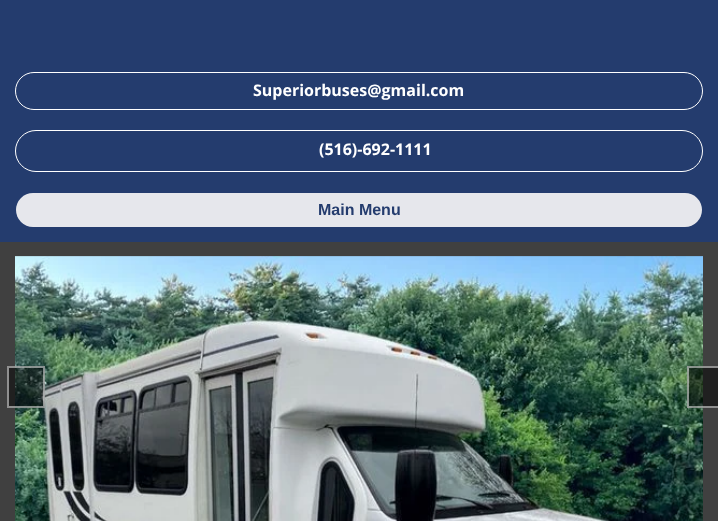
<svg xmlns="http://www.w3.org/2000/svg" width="718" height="521">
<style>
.a{font:bold 16px Open Sans;fill:#fff}
.b{font:bold 16px Liberation Sans;fill:#243c6e}
</style>
<rect width="100%" height="100%" fill="#243c6e"/>
<rect fill="none" stroke="#fff" x="15.5" y="72.5" width="687" height="37" rx="18.5"/>
<rect fill="none" stroke="#fff" x="15.5" y="130.5" width="687" height="41" rx="20.5"/>
<rect fill="#e6e7ec" x="16" y="193" width="686" height="34" rx="17"/>
<path fill="#404040" d="M0 242h718v279H0z"/>
<image href="1.png" x="15" y="256" width="688" height="265"/>
<path fill="#00000080" d="M7 366h38v42H7z"/>
<path fill="none" stroke="#ffffff80" stroke-width="2" d="M8 367h36v40H8z"/>
<path fill="#00000080" d="M687 366h31v42H687z"/>
<path fill="none" stroke="#ffffff80" stroke-width="2" d="M688 367h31v40H688z"/>
<text class="a" x="253" y="96">Superiorbuses@gmail.com</text>
<text class="a" x="319" y="155">(516)-692-1111</text>
<text class="b" x="318" y="215">Main Menu</text>
</svg>
